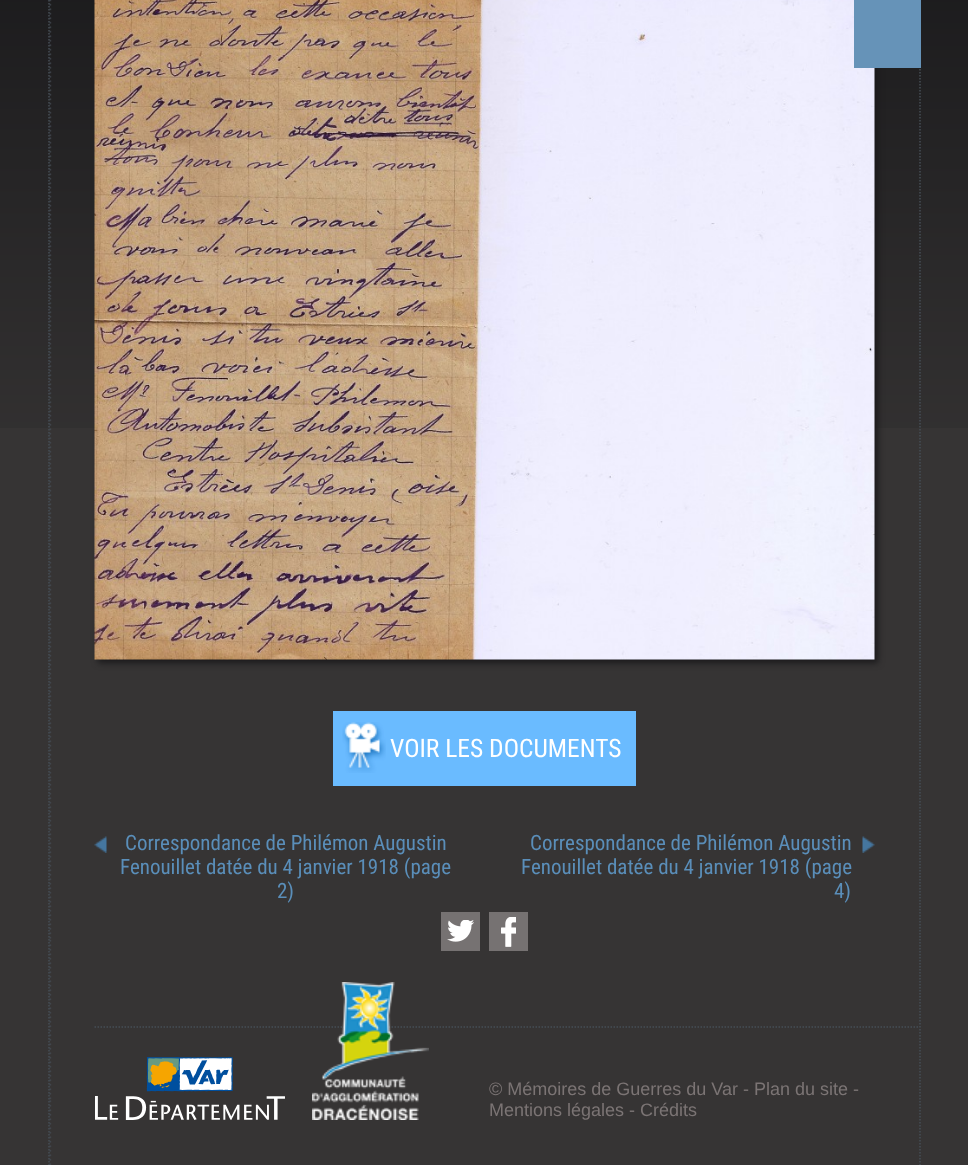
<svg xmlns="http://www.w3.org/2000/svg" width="968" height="1165">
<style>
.a{font:25.5px Roboto Condensed;fill:#fff}
.b{font:21px Roboto Condensed;fill:#5a8eb9}
.c{font:18px Liberation Sans;fill:#7b7474}
</style>
<rect width="100%" height="100%" fill="#363434"/>
<image href="1.png" x="0" y="0" width="968" height="428"/>
<image href="2.png" x="49" y="0" width="3" height="1165"/>
<path fill="none" stroke="#464e56" stroke-width="1.5" stroke-dasharray="1.5 1.5" d="M920-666v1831.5"/>
<path fill="none" stroke="#464e56" stroke-width="1.5" stroke-dasharray="1.5 1.5" d="M49-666v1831.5"/>
<path fill="#1a191b" filter="blur(3px)" d="M98 -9h780v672H98z"/>
<image href="3.png" x="94" y="0" width="781" height="660"/>
<path fill="#6693b8" d="M854 0h67v68H854z"/>
<path fill="none" stroke="#464e56" stroke-width="1.5" stroke-dasharray="1.5 1.5" d="M94.5 1027h825"/>
<path fill="#6abbff" d="M333 711h303v75H333z"/>
<image href="4.png" x="342" y="722" width="44" height="51"/>
<image href="5.png" x="94" y="836" width="13" height="17"/>
<image href="6.png" x="862" y="836" width="13" height="17"/>
<path fill="#767272" d="M441 912h39v39H441z"/>
<image href="7.png" x="447" y="920" width="27" height="22"/>
<path fill="#767272" d="M489 912h39v39H489z"/>
<image href="8.png" x="501" y="917" width="15" height="30"/>
<image href="9.png" x="95" y="1057" width="190" height="63"/>
<image href="10.png" x="312" y="982" width="117" height="138"/>
<text class="a" x="390" y="757">VOIR LES DOCUMENTS</text>
<text class="b" x="125" y="850">Correspondance de Philémon Augustin</text>
<text class="b" x="120" y="874">Fenouillet datée du 4 janvier 1918 (page</text>
<text class="b" x="277" y="898">2)</text>
<text class="b" x="530" y="850">Correspondance de Philémon Augustin</text>
<text class="b" x="521" y="874">Fenouillet datée du 4 janvier 1918 (page</text>
<text class="b" x="834" y="898">4)</text>
<text class="c" x="489" y="1095">© Mémoires de Guerres du Var - Plan du site -</text>
<text class="c" x="489" y="1116">Mentions légales - Crédits</text>
</svg>
